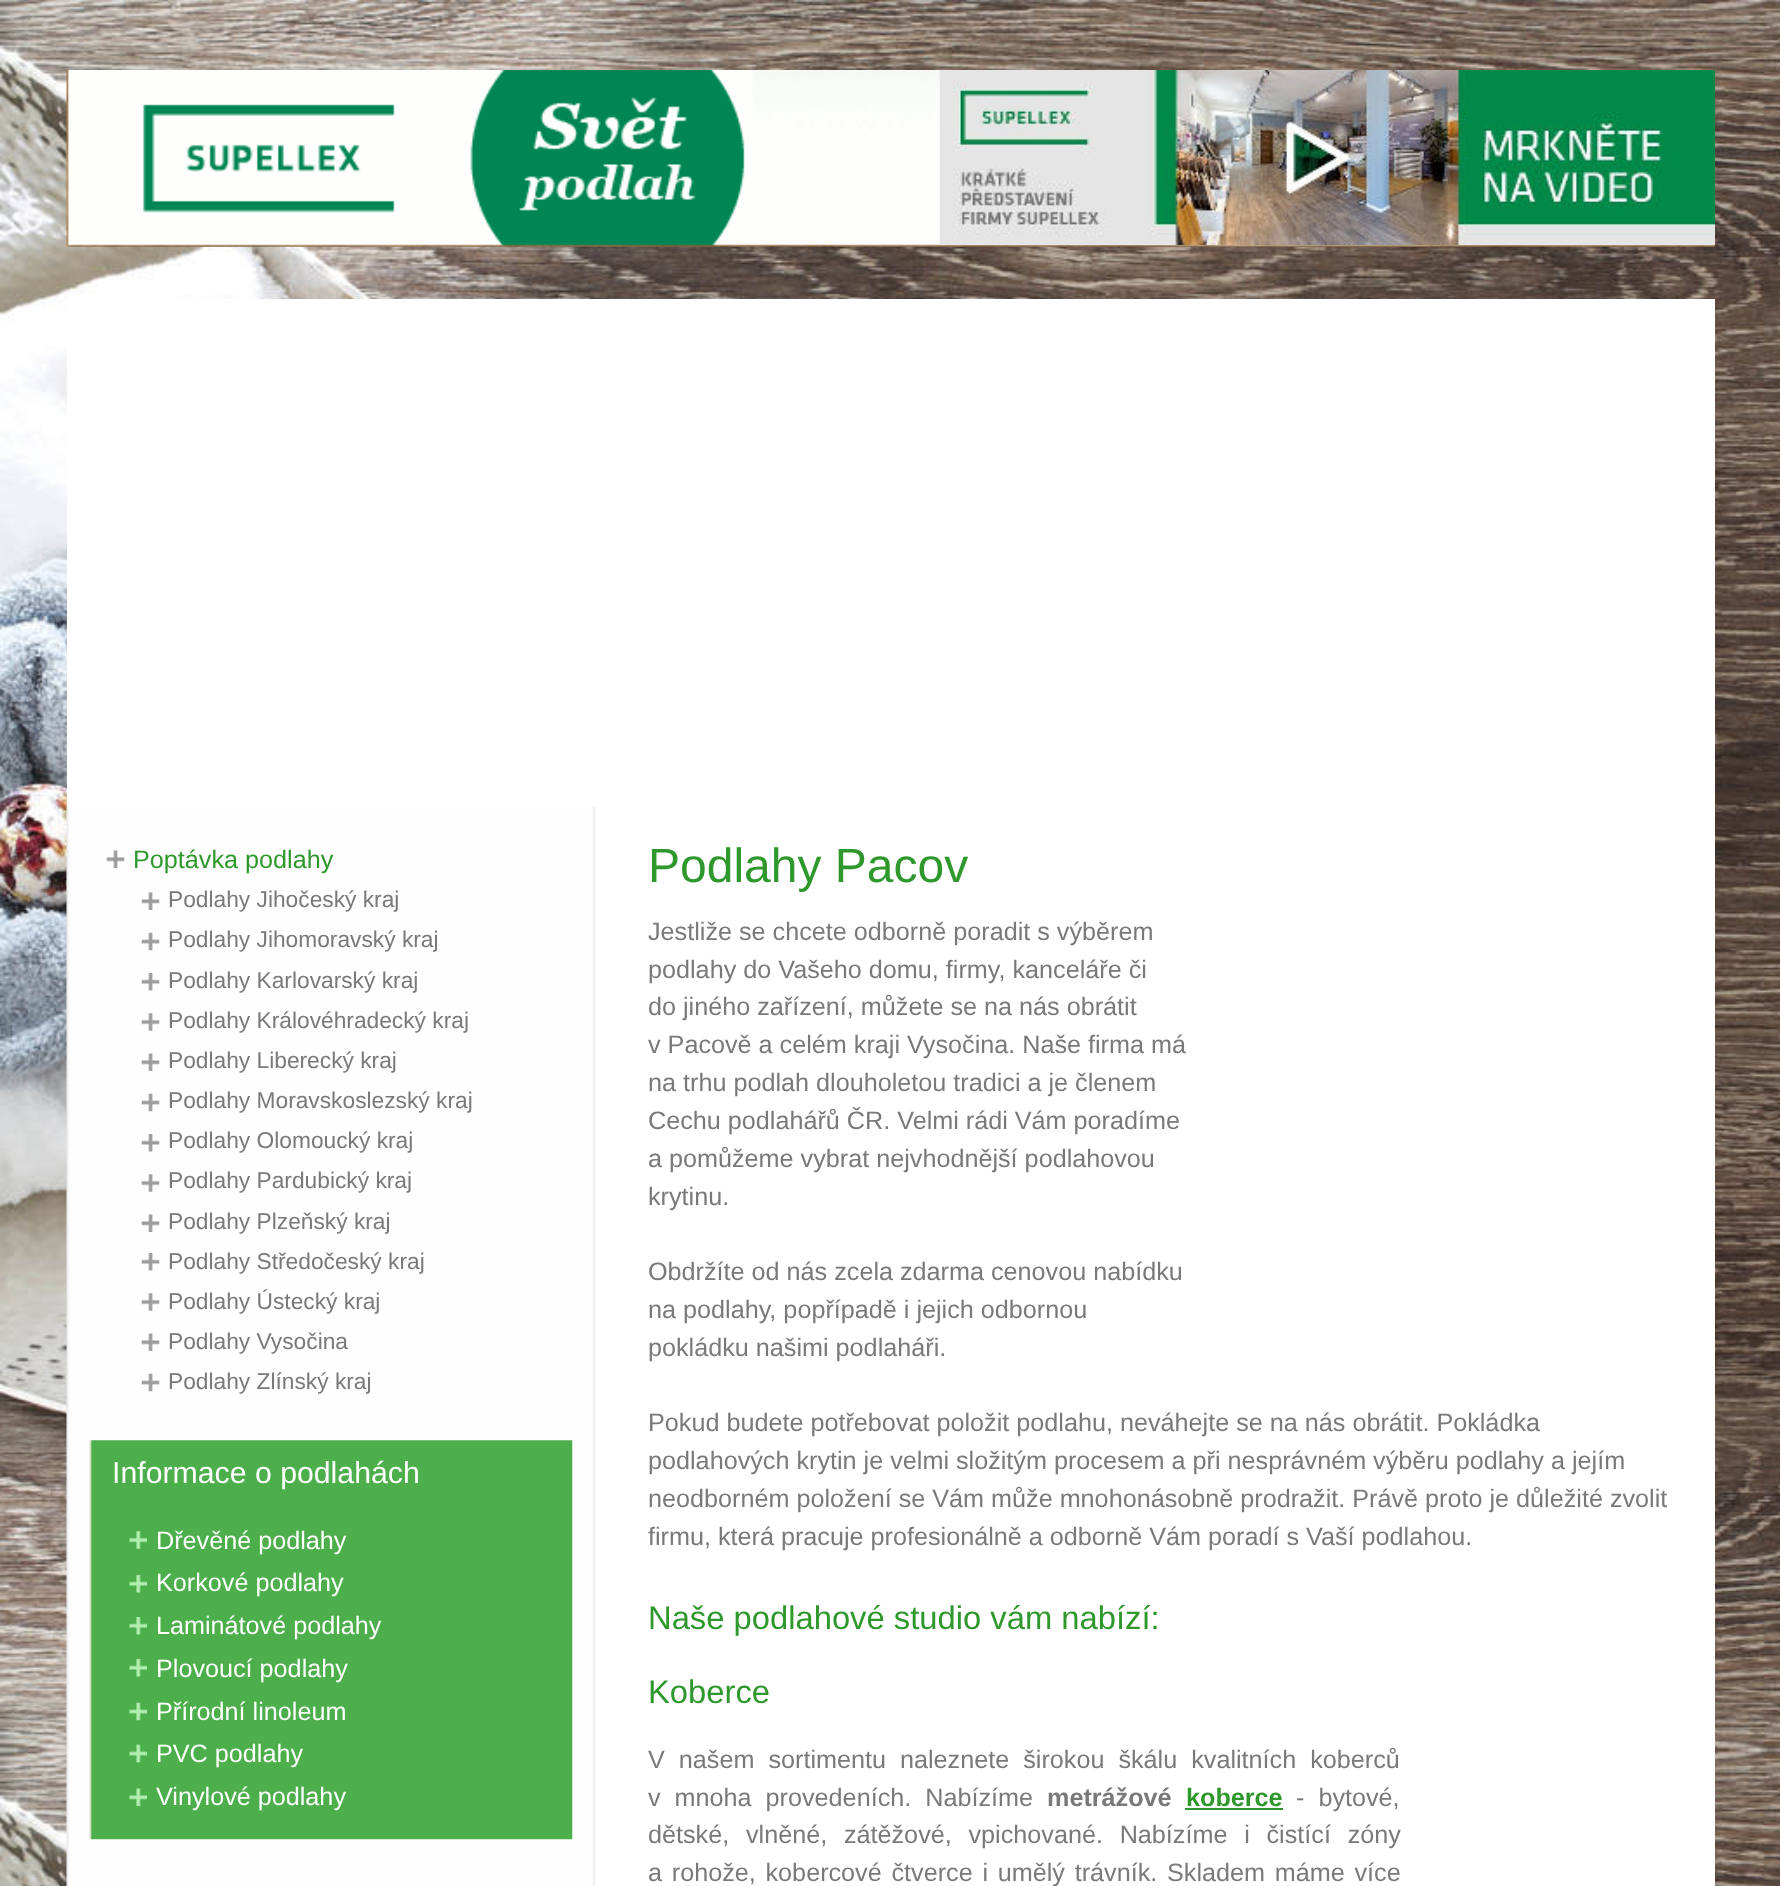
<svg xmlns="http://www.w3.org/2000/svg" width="1780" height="1886">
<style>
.a{font:25.2px Liberation Sans;fill:#2e982c}
.b{font:22.75px Liberation Sans;fill:#797979}
.c{font:30.25px Liberation Sans;fill:#fff}
.d{font:25.2px Liberation Sans;fill:#fff}
.e{font:48px Liberation Sans;fill:#2e982c}
.f{font:25.2px Liberation Sans;fill:#797979}
.g{font:32.75px Liberation Sans;fill:#2e982c}
.h{font:bold 25.2px Liberation Sans;fill:#797979}
.i{font:bold 25.2px Liberation Sans;fill:#2e982c}
</style>
<rect width="100%" height="100%" fill="#fff"/>
<image href="1.png" x="0" y="0" width="1780" height="1886"/>
<image href="2.png" x="66" y="70" width="1649" height="177"/>
<image href="3.png" x="939" y="70" width="776" height="175"/>
<path fill="#fff" d="M67 299h1648v1587H67z"/>
<image href="4.png" x="66" y="806" width="529" height="1080"/>
<image href="5.png" x="106" y="850" width="19" height="18"/>
<image href="5.png" x="141" y="892" width="19" height="18"/>
<image href="6.png" x="141" y="932" width="19" height="19"/>
<image href="7.png" x="141" y="973" width="19" height="18"/>
<image href="8.png" x="141" y="1013" width="19" height="18"/>
<image href="5.png" x="141" y="1053" width="19" height="18"/>
<image href="6.png" x="141" y="1093" width="19" height="19"/>
<image href="7.png" x="141" y="1134" width="19" height="18"/>
<image href="8.png" x="141" y="1174" width="19" height="18"/>
<image href="5.png" x="141" y="1214" width="19" height="18"/>
<image href="7.png" x="141" y="1253" width="19" height="18"/>
<image href="8.png" x="141" y="1293" width="19" height="18"/>
<image href="5.png" x="141" y="1333" width="19" height="18"/>
<image href="6.png" x="141" y="1373" width="19" height="19"/>
<image href="9.png" x="89" y="1440" width="484" height="400"/>
<image href="10.png" x="129" y="1531" width="18" height="18"/>
<image href="11.png" x="129" y="1575" width="18" height="18"/>
<image href="11.png" x="129" y="1617" width="18" height="18"/>
<image href="11.png" x="129" y="1659" width="18" height="18"/>
<image href="12.png" x="129" y="1702" width="18" height="19"/>
<image href="12.png" x="129" y="1744" width="18" height="19"/>
<image href="13.png" x="129" y="1788" width="18" height="18"/>
<path fill="#2e982c" d="M1185 1808h98v2H1185z"/>
<text class="a" x="133" y="868">Poptávka podlahy</text>
<text class="b" x="168" y="907">Podlahy Jihočeský kraj</text>
<text class="b" x="168" y="947">Podlahy Jihomoravský kraj</text>
<text class="b" x="168" y="988">Podlahy Karlovarský kraj</text>
<text class="b" x="168" y="1028">Podlahy Královéhradecký kraj</text>
<text class="b" x="168" y="1068">Podlahy Liberecký kraj</text>
<text class="b" x="168" y="1108">Podlahy Moravskoslezský kraj</text>
<text class="b" x="168" y="1148">Podlahy Olomoucký kraj</text>
<text class="b" x="168" y="1188">Podlahy Pardubický kraj</text>
<text class="b" x="168" y="1229">Podlahy Plzeňský kraj</text>
<text class="b" x="168" y="1269">Podlahy Středočeský kraj</text>
<text class="b" x="168" y="1309">Podlahy Ústecký kraj</text>
<text class="b" x="168" y="1349">Podlahy Vysočina</text>
<text class="b" x="168" y="1389">Podlahy Zlínský kraj</text>
<text class="c" x="112" y="1483">Informace o podlahách</text>
<text class="d" x="156" y="1549">Dřevěné podlahy</text>
<text class="d" x="156" y="1591">Korkové podlahy</text>
<text class="d" x="156" y="1634">Laminátové podlahy</text>
<text class="d" x="156" y="1677">Plovoucí podlahy</text>
<text class="d" x="156" y="1720">Přírodní linoleum</text>
<text class="d" x="156" y="1762">PVC podlahy</text>
<text class="d" x="156" y="1805">Vinylové podlahy</text>
<text class="e" x="648" y="882">Podlahy Pacov</text>
<text class="f" x="648" y="940">Jestliže se chcete odborně poradit s výběrem</text>
<text class="f" x="648" y="978">podlahy do Vašeho domu, firmy, kanceláře či</text>
<text class="f" x="648" y="1015">do jiného zařízení, můžete se na nás obrátit</text>
<text class="f" x="648" y="1053">v Pacově a celém kraji Vysočina. Naše firma má</text>
<text class="f" x="648" y="1091">na trhu podlah dlouholetou tradici a je členem</text>
<text class="f" x="648" y="1129">Cechu podlahářů ČR. Velmi rádi Vám poradíme</text>
<text class="f" x="648" y="1167">a pomůžeme vybrat nejvhodnější podlahovou</text>
<text class="f" x="648" y="1205">krytinu.</text>
<text class="f" x="648" y="1280">Obdržíte od nás zcela zdarma cenovou nabídku</text>
<text class="f" x="648" y="1318">na podlahy, popřípadě i jejich odbornou</text>
<text class="f" x="648" y="1356">pokládku našimi podlaháři.</text>
<text class="f" x="648" y="1431">Pokud budete potřebovat položit podlahu, neváhejte se na nás obrátit. Pokládka</text>
<text class="f" x="648" y="1469">podlahových krytin je velmi složitým procesem a při nesprávném výběru podlahy a jejím</text>
<text class="f" x="648" y="1507">neodborném položení se Vám může mnohonásobně prodražit. Právě proto je důležité zvolit</text>
<text class="f" x="648" y="1545">firmu, která pracuje profesionálně a odborně Vám poradí s Vaší podlahou.</text>
<text class="g" x="648" y="1629">Naše podlahové studio vám nabízí:</text>
<text class="g" x="648" y="1703">Koberce</text>
<text class="f" x="648" y="1768" word-spacing="7">V našem sortimentu naleznete širokou škálu kvalitních koberců</text>
<text class="f" x="648" y="1806" word-spacing="7">v mnoha provedeních. Nabízíme</text>
<text class="h" x="1047" y="1806">metrážové</text>
<text class="i" x="1186" y="1806">koberce</text>
<text class="f" x="1296" y="1806" word-spacing="7">- bytové,</text>
<text class="f" x="648" y="1843" word-spacing="9.75">dětské, vlněné, zátěžové, vpichované. Nabízíme i čistící zóny</text>
<text class="f" x="648" y="1881" word-spacing="2.75">a rohože, kobercové čtverce i umělý trávník. Skladem máme více</text>
</svg>
